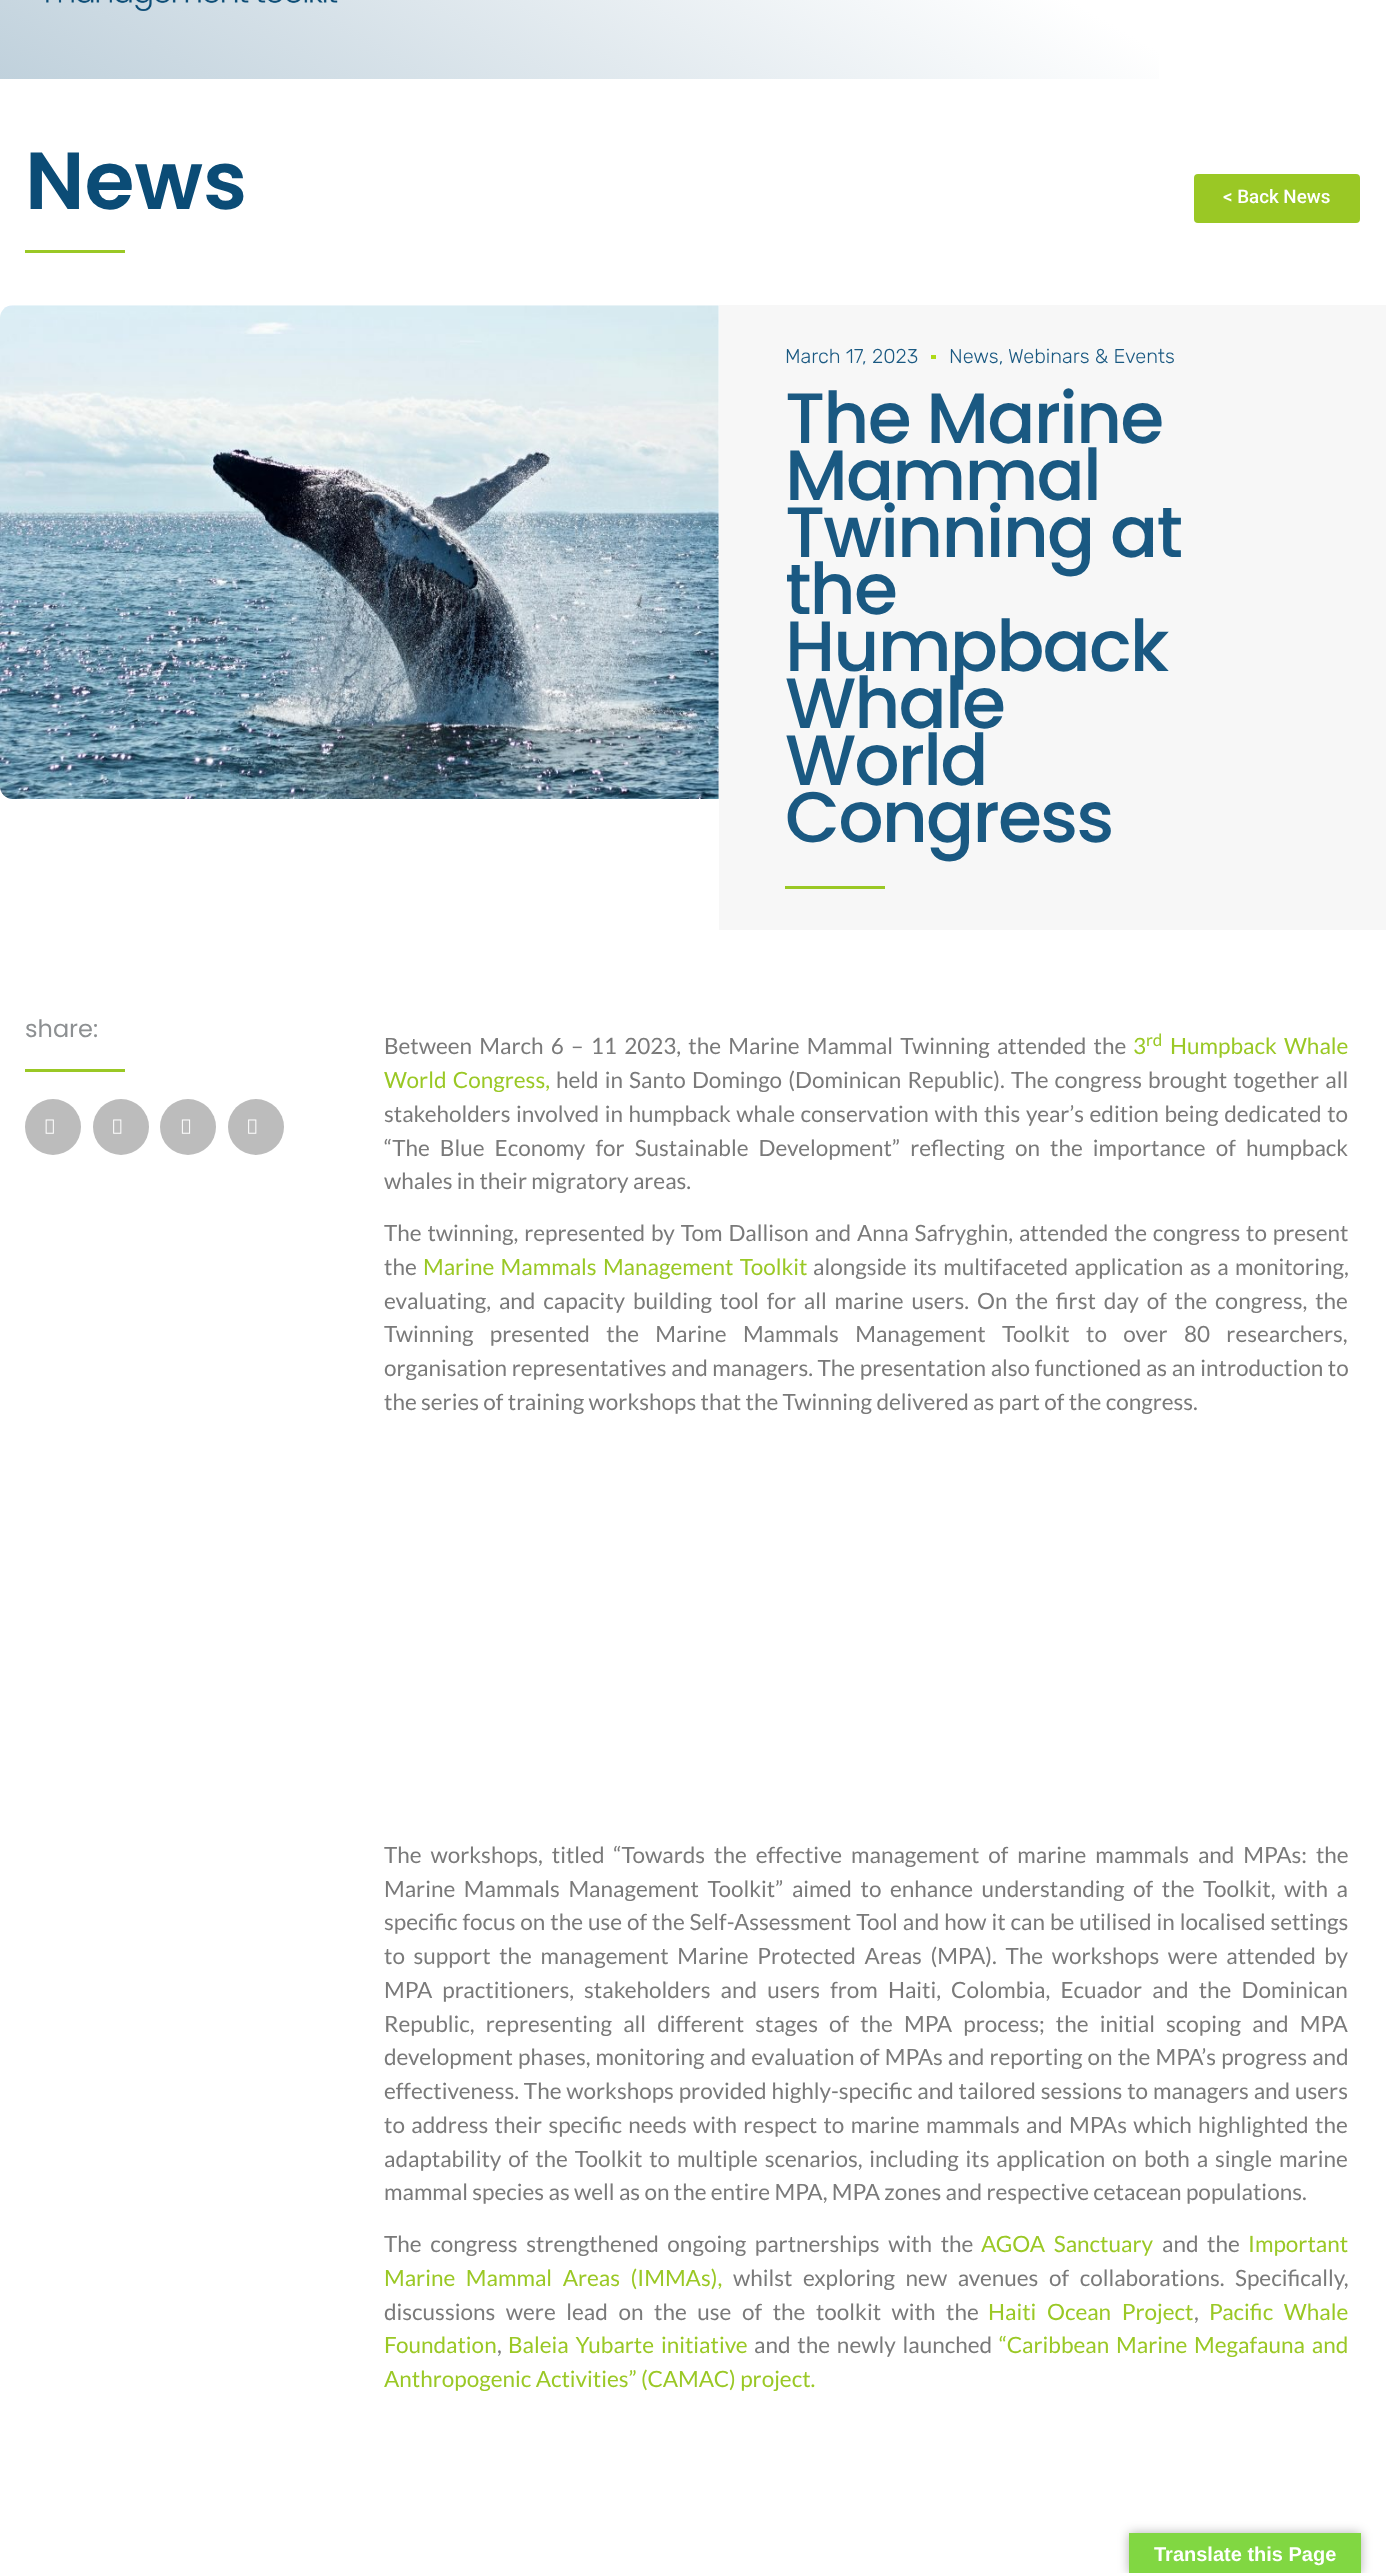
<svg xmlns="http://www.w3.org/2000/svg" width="1386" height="2573">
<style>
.a{font:600 81px Poppins;fill:#0b4c76}
.b{font:500 18.75px Roboto;fill:#fff}
.c{font:300 20px Rubik;fill:#1a5982}
.d{font:500 71.25px Poppins;letter-spacing:-1.9px;fill:#1a5982}
.e{font:24px Poppins;fill:#8d9092}
.f{font:22.5px Lato;fill:#7a7a7a}
.g{font:22.5px Lato;fill:#9ac825}
.h{font:17px Lato;fill:#9ac825}
.i{font:bold 20px Liberation Sans;fill:#fff}
</style>
<defs>
<linearGradient id="g1" gradientUnits="userSpaceOnUse" x1="918" y1="-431" x2="468" y2="349"><stop offset="0.33" stop-color="#fff"/><stop offset="1" stop-color="#c0d1dc"/></linearGradient>
</defs>
<rect width="100%" height="100%" fill="#fff"/>
<path fill="url(#g1)" d="M0 0h1159v79H0z"/>
<image href="1.png" x="46" y="0" width="292" height="11"/>
<path fill="#9ac825" d="M25 250h100v3H25z"/>
<rect fill="#9ac825" x="1194" y="174" width="166" height="49" rx="4"/>
<image href="2.png" x="0" y="305" width="719" height="494"/>
<path fill="#f7f7f7" d="M719 305h667v625H719z"/>
<path fill="#aeda18" d="M931 355h5v4H931z"/>
<path fill="#9ac825" d="M785 886h100v3H785z"/>
<path fill="#9ac825" d="M25 1069h100v3H25z"/>
<circle fill="#bcbcbc" cx="53" cy="1127" r="28"/>
<image href="3.png" x="45" y="1119" width="9" height="15"/>
<circle fill="#bcbcbc" cx="121" cy="1127" r="28"/>
<image href="4.png" x="113" y="1119" width="9" height="15"/>
<circle fill="#bcbcbc" cx="188" cy="1127" r="28"/>
<image href="5.png" x="181" y="1119" width="10" height="15"/>
<circle fill="#bcbcbc" cx="256" cy="1127" r="28"/>
<image href="4.png" x="248" y="1119" width="9" height="15"/>
<path fill="#0000004d" filter="blur(5.5px)" d="M1129 2533h232v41H1129z"/>
<path fill="#81d742" d="M1129 2533h232v40H1129z"/>
<text class="a" x="25" y="209">News</text>
<text class="b" x="1223" y="203">&lt; Back News</text>
<text class="c" x="785" y="363">March 17, 2023</text>
<text class="c" x="949" y="363">News,</text>
<text class="c" x="1008" y="363">Webinars &amp; Events</text>
<text class="d" x="785" y="443">The Marine</text>
<text class="d" x="785" y="500">Mammal</text>
<text class="d" x="785" y="557">Twinning at</text>
<text class="d" x="785" y="614">the</text>
<text class="d" x="785" y="671">Humpback</text>
<text class="d" x="785" y="728">Whale</text>
<text class="d" x="785" y="785">World</text>
<text class="d" x="785" y="842">Congress</text>
<text class="e" x="25" y="1037">share:</text>
<text class="f" x="384" y="1054" word-spacing="2.9">Between March 6 – 11 2023, the Marine Mammal Twinning attended the</text>
<text class="g" x="1133" y="1054">3</text>
<text class="h" x="1146" y="1046">rd</text>
<text class="g" x="1170" y="1054" word-spacing="2.9">Humpback Whale</text>
<text class="g" x="384" y="1088" word-spacing="2">World Congress,</text>
<text class="f" x="556" y="1088" word-spacing="1.75">held in Santo Domingo (Dominican Republic). The congress brought together all</text>
<text class="f" x="384" y="1122" word-spacing="1.25">stakeholders involved in humpback whale conservation with this year’s edition being dedicated to</text>
<text class="f" x="384" y="1156" word-spacing="5.75">“The Blue Economy for Sustainable Development” reflecting on the importance of humpback</text>
<text class="f" x="384" y="1189">whales in their migratory areas.</text>
<text class="f" x="384" y="1241" word-spacing="1.5">The twinning, represented by Tom Dallison and Anna Safryghin, attended the congress to present</text>
<text class="f" x="384" y="1275">the</text>
<text class="g" x="423" y="1275" word-spacing="2">Marine Mammals Management Toolkit</text>
<text class="f" x="813" y="1275" word-spacing="2">alongside its multifaceted application as a monitoring,</text>
<text class="f" x="384" y="1309" word-spacing="3.5">evaluating, and capacity building tool for all marine users. On the first day of the congress, the</text>
<text class="f" x="384" y="1342" word-spacing="12">Twinning presented the Marine Mammals Management Toolkit to over 80 researchers,</text>
<text class="f" x="384" y="1376" word-spacing="0.25">organisation representatives and managers. The presentation also functioned as an introduction to</text>
<text class="f" x="384" y="1410">the series of training workshops that the Twinning delivered as part of the congress.</text>
<text class="f" x="384" y="1863" word-spacing="4.6">The workshops, titled “Towards the effective management of marine mammals and MPAs: the</text>
<text class="f" x="384" y="1897" word-spacing="4.25">Marine Mammals Management Toolkit” aimed to enhance understanding of the Toolkit, with a</text>
<text class="f" x="384" y="1930" word-spacing="0.6">specific focus on the use of the Self-Assessment Tool and how it can be utilised in localised settings</text>
<text class="f" x="384" y="1964" word-spacing="4.25">to support the management Marine Protected Areas (MPA). The workshops were attended by</text>
<text class="f" x="384" y="1998" word-spacing="5.75">MPA practitioners, stakeholders and users from Haiti, Colombia, Ecuador and the Dominican</text>
<text class="f" x="384" y="2032" word-spacing="6.75">Republic, representing all different stages of the MPA process; the initial scoping and MPA</text>
<text class="f" x="384" y="2065" word-spacing="0.75">development phases, monitoring and evaluation of MPAs and reporting on the MPA’s progress and</text>
<text class="f" x="384" y="2099" word-spacing="0.5">effectiveness. The workshops provided highly-specific and tailored sessions to managers and users</text>
<text class="f" x="384" y="2133" word-spacing="2">to address their specific needs with respect to marine mammals and MPAs which highlighted the</text>
<text class="f" x="384" y="2167" word-spacing="2.5">adaptability of the Toolkit to multiple scenarios, including its application on both a single marine</text>
<text class="f" x="384" y="2200">mammal species as well as on the entire MPA, MPA zones and respective cetacean populations.</text>
<text class="f" x="384" y="2252" word-spacing="4.25">The congress strengthened ongoing partnerships with the</text>
<text class="g" x="981" y="2252" word-spacing="4.25">AGOA Sanctuary</text>
<text class="f" x="1162" y="2252" word-spacing="4.25">and the</text>
<text class="g" x="1248" y="2252">Important</text>
<text class="g" x="384" y="2286" word-spacing="6.25">Marine Mammal Areas (IMMAs),</text>
<text class="f" x="733" y="2286" word-spacing="6.25">whilst exploring new avenues of collaborations. Specifically,</text>
<text class="f" x="384" y="2320" word-spacing="6.25">discussions were lead on the use of the toolkit with the</text>
<text class="g" x="988" y="2320" word-spacing="6.25">Haiti Ocean Project</text>
<text class="f" x="1194" y="2320">,</text>
<text class="g" x="1209" y="2320" word-spacing="6.25">Pacific Whale</text>
<text class="g" x="384" y="2353">Foundation</text>
<text class="f" x="497" y="2353">,</text>
<text class="g" x="508" y="2353" word-spacing="2.5">Baleia Yubarte initiative</text>
<text class="f" x="754" y="2353" word-spacing="2.5">and the newly launched</text>
<text class="g" x="999" y="2353" word-spacing="2.5">“Caribbean Marine Megafauna and</text>
<text class="g" x="384" y="2387">Anthropogenic Activities” (CAMAC) project.</text>
<text class="i" x="1154" y="2561">Translate this Page</text>
</svg>
